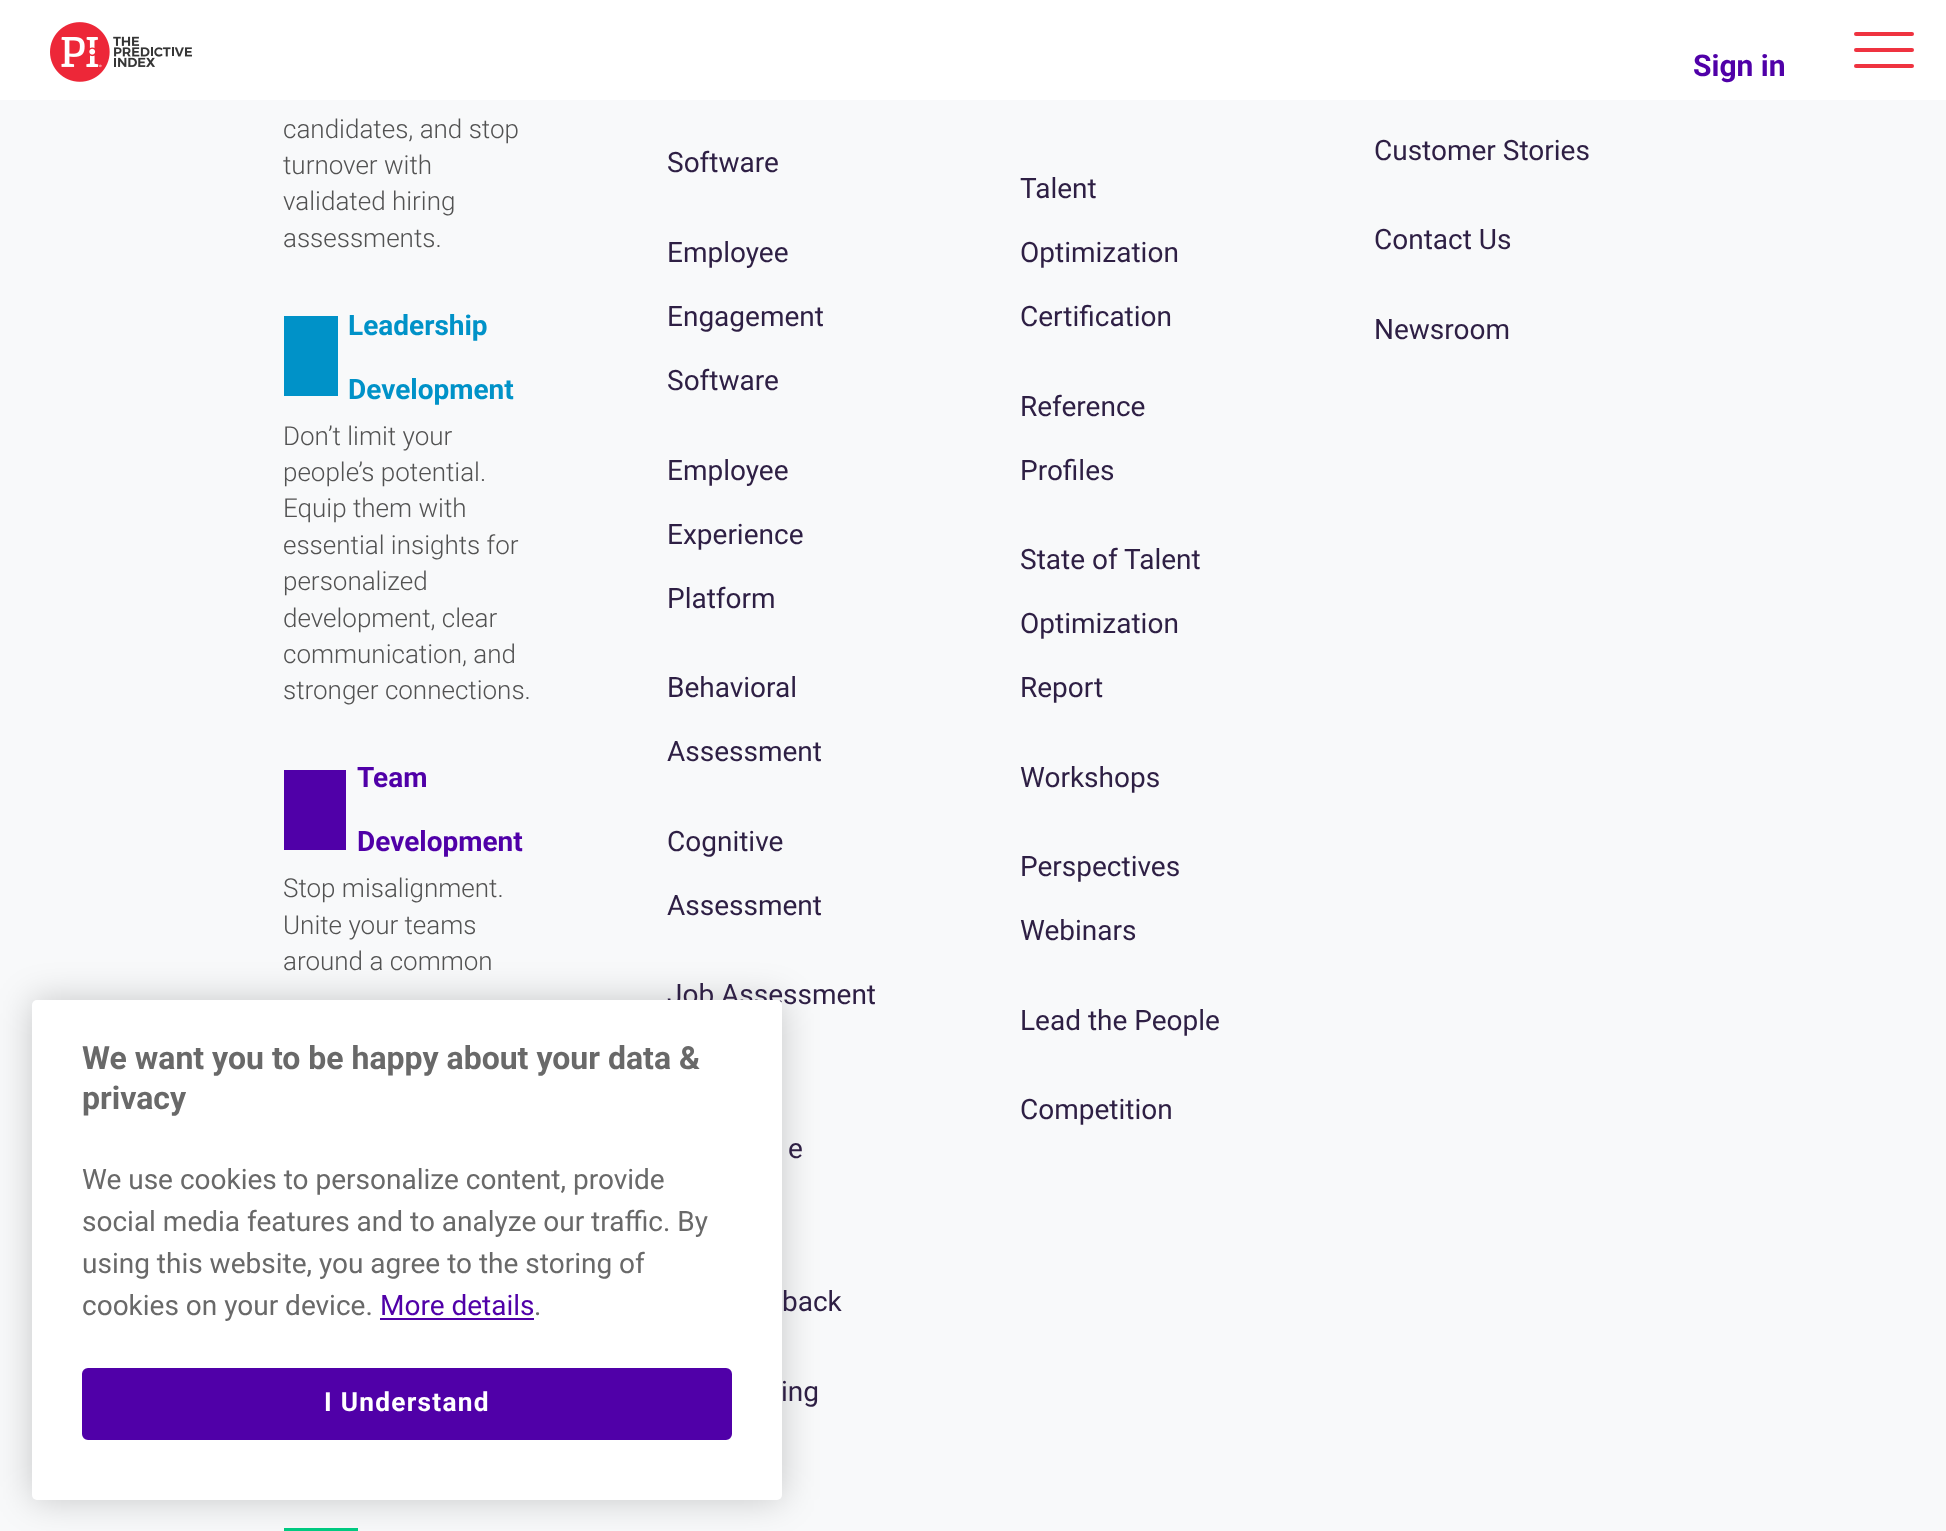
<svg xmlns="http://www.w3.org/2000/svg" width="1946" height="1531">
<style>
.a{font:bold 30px Roboto;fill:#5000a8}
.b{font:300 26px Roboto;fill:#525252}
.c{font:bold 28px Roboto;fill:#0092c8}
.d{font:bold 28px Roboto;fill:#5000a8}
.e{font:28px Roboto;fill:#2e1f44}
.f{font:bold 32px Roboto;fill:#696969}
.g{font:28px Roboto;fill:#696969}
.h{font:28px Roboto;fill:#5000a8}
.i{font:bold 26.25px Roboto;letter-spacing:1.25px;fill:#fff}
</style>
<rect width="100%" height="100%" fill="#f8f9fa"/>
<path fill="#fff" d="M0 0h1946v100H0z"/>
<image href="1.png" x="50" y="22" width="142" height="60"/>
<rect fill="#ef3340" x="1854" y="48" width="60" height="4" rx="2"/>
<rect fill="#ef3340" x="1854" y="32" width="60" height="4" rx="2"/>
<rect fill="#ef3340" x="1854" y="64" width="60" height="4" rx="2"/>
<path fill="#0092c8" d="M284 316h54v80H284z"/>
<path fill="#5000a8" d="M284 770h62v80H284z"/>
<path fill="#00cc83" d="M284 1528h74v3H284z"/>
<rect fill="#00000033" filter="blur(18px)" x="32" y="1000" width="750" height="500" rx="5"/>
<text class="a" x="1693" y="76">Sign in</text>
<text class="b" x="283" y="138">candidates, and stop</text>
<text class="b" x="283" y="174">turnover with</text>
<text class="b" x="283" y="210">validated hiring</text>
<text class="b" x="283" y="247">assessments.</text>
<text class="c" x="348" y="335">Leadership</text>
<text class="c" x="348" y="399">Development</text>
<text class="b" x="283" y="445">Don’t limit your</text>
<text class="b" x="283" y="481">people’s potential.</text>
<text class="b" x="283" y="517">Equip them with</text>
<text class="b" x="283" y="554">essential insights for</text>
<text class="b" x="283" y="590">personalized</text>
<text class="b" x="283" y="627">development, clear</text>
<text class="b" x="283" y="663">communication, and</text>
<text class="b" x="283" y="699">stronger connections.</text>
<text class="d" x="357" y="787">Team</text>
<text class="d" x="357" y="851">Development</text>
<text class="b" x="283" y="897">Stop misalignment.</text>
<text class="b" x="283" y="934">Unite your teams</text>
<text class="b" x="283" y="970">around a common</text>
<text class="e" x="667" y="172">Software</text>
<text class="e" x="667" y="262">Employee</text>
<text class="e" x="667" y="326">Engagement</text>
<text class="e" x="667" y="390">Software</text>
<text class="e" x="667" y="480">Employee</text>
<text class="e" x="667" y="544">Experience</text>
<text class="e" x="667" y="608">Platform</text>
<text class="e" x="667" y="697">Behavioral</text>
<text class="e" x="667" y="761">Assessment</text>
<text class="e" x="667" y="851">Cognitive</text>
<text class="e" x="667" y="915">Assessment</text>
<text class="e" x="667" y="1004">Job Assessment</text>
<text class="e" x="788" y="1158">e</text>
<text class="e" x="782" y="1311">back</text>
<text class="e" x="781" y="1401">ing</text>
<text class="e" x="1020" y="198">Talent</text>
<text class="e" x="1020" y="262">Optimization</text>
<text class="e" x="1020" y="326">Certification</text>
<text class="e" x="1020" y="416">Reference</text>
<text class="e" x="1020" y="480">Profiles</text>
<text class="e" x="1020" y="569">State of Talent</text>
<text class="e" x="1020" y="633">Optimization</text>
<text class="e" x="1020" y="697">Report</text>
<text class="e" x="1020" y="787">Workshops</text>
<text class="e" x="1020" y="876">Perspectives</text>
<text class="e" x="1020" y="940">Webinars</text>
<text class="e" x="1020" y="1030">Lead the People</text>
<text class="e" x="1020" y="1119">Competition</text>
<text class="e" x="1374" y="160">Customer Stories</text>
<text class="e" x="1374" y="249">Contact Us</text>
<text class="e" x="1374" y="339">Newsroom</text>
<rect fill="#fff" x="32" y="1000" width="750" height="500" rx="5"/>
<text class="f" x="82" y="1069">We want you to be happy about your data &amp;</text>
<text class="f" x="82" y="1109">privacy</text>
<text class="g" x="82" y="1189">We use cookies to personalize content, provide</text>
<text class="g" x="82" y="1231">social media features and to analyze our traffic. By</text>
<text class="g" x="82" y="1273">using this website, you agree to the storing of</text>
<text class="g" x="82" y="1315">cookies on your device.</text>
<text class="h" x="380" y="1315">More details</text>
<path fill="#5000a8" d="M380 1318h154v2H380z"/>
<text class="g" x="534" y="1315">.</text>
<rect fill="#5000a8" stroke="#5000a8" stroke-width="2" x="83" y="1369" width="648" height="70" rx="5"/>
<text class="i" x="324" y="1411">I Understand</text>
</svg>
